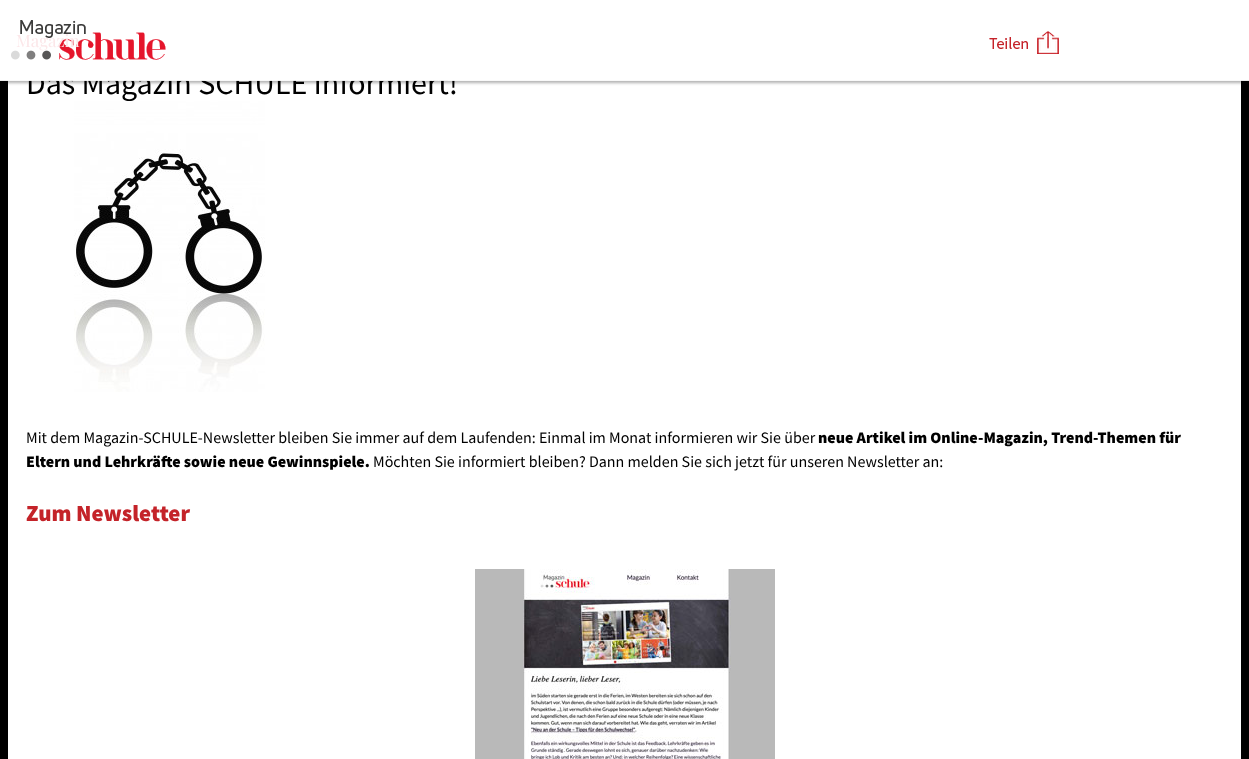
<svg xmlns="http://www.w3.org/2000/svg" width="1249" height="759">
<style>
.a{font:32px Source Sans Pro;fill:#000}
.b{font:17px Playfair Display;fill:#fce7e9}
.c{font:16px Source Sans Pro;fill:#000}
.d{font:900 16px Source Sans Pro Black;fill:#000}
.e{font:900 23px Source Sans Pro Black;fill:#c42329}
</style>
<rect width="100%" height="100%" fill="#fff"/>
<path fill="none" stroke="#000" stroke-width="8" d="M4 43h1241v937h-1241z"/>
<path fill="#0000004d" filter="blur(1.5px)" d="M-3 -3h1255v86H-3z"/>
<image href="4.png" x="475" y="569" width="300" height="190"/>
<text class="a" x="26" y="94">Das Magazin SCHULE informiert!</text>
<path fill="#ffffffeb" d="M0 80h1249v1H0z"/>
<path fill="#fff" d="M0 0h1249v80H0z"/>
<image href="2.png" x="989" y="31" width="70" height="23"/>
<image href="1.png" x="11" y="20" width="155" height="40"/>
<text class="b" x="16" y="47">Magazin</text>
<image href="3.png" x="74" y="101" width="191" height="291"/>
<text class="c" x="26" y="443">Mit dem Magazin-SCHULE-Newsletter bleiben Sie immer auf dem Laufenden: Einmal im Monat informieren wir Sie über</text>
<text class="d" x="818" y="443">neue Artikel im Online-Magazin, Trend-Themen für</text>
<text class="d" x="26" y="467">Eltern und Lehrkräfte sowie neue Gewinnspiele.</text>
<text class="c" x="373" y="467">Möchten Sie informiert bleiben? Dann melden Sie sich jetzt für unseren Newsletter an:</text>
<text class="e" x="26" y="521">Zum Newsletter</text>
</svg>
